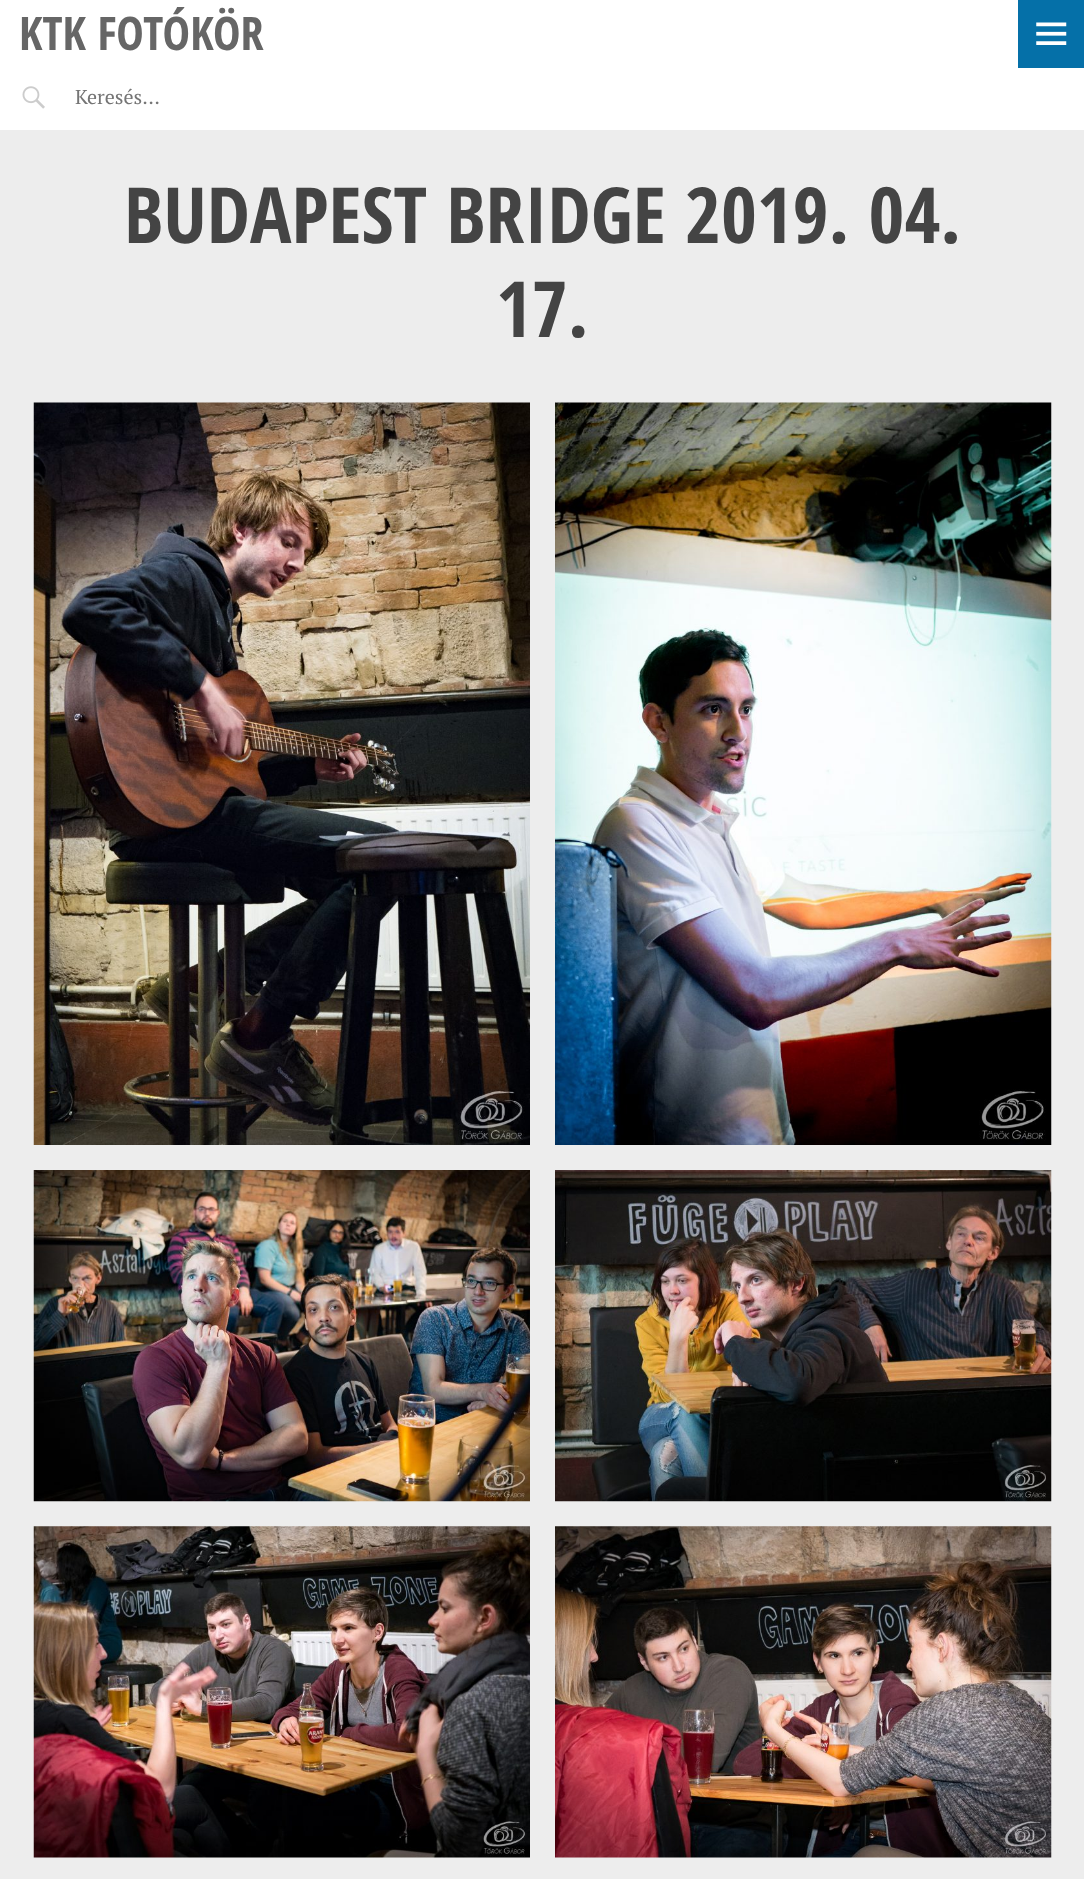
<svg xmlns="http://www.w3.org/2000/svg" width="1084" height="1879">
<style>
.a{font:bold 46.25px Open Sans Condensed;fill:#666}
.b{font:20px PT Serif;fill:#757575}
.c{font:bold 77.5px Open Sans Condensed;fill:#444}
</style>
<rect width="100%" height="100%" fill="#ededed"/>
<path fill="#fff" d="M0 0h1084v130H0z"/>
<path fill="#0570a8" d="M1018 0h66v68H1018z"/>
<image href="1.png" x="1036" y="22" width="31" height="23"/>
<image href="2.png" x="22" y="86" width="23" height="23"/>
<image href="3.png" x="33" y="402" width="497" height="743"/>
<image href="4.png" x="555" y="402" width="497" height="743"/>
<image href="5.png" x="33" y="1170" width="497" height="332"/>
<image href="6.png" x="555" y="1170" width="497" height="332"/>
<image href="7.png" x="33" y="1526" width="497" height="332"/>
<image href="8.png" x="555" y="1526" width="497" height="332"/>
<text class="a" x="19" y="50">KTK FOTÓKÖR</text>
<text class="b" x="75" y="104">Keresés…</text>
<text class="c" x="124" y="243">BUDAPEST BRIDGE 2019. 04.</text>
<text class="c" x="496" y="337">17.</text>
</svg>
